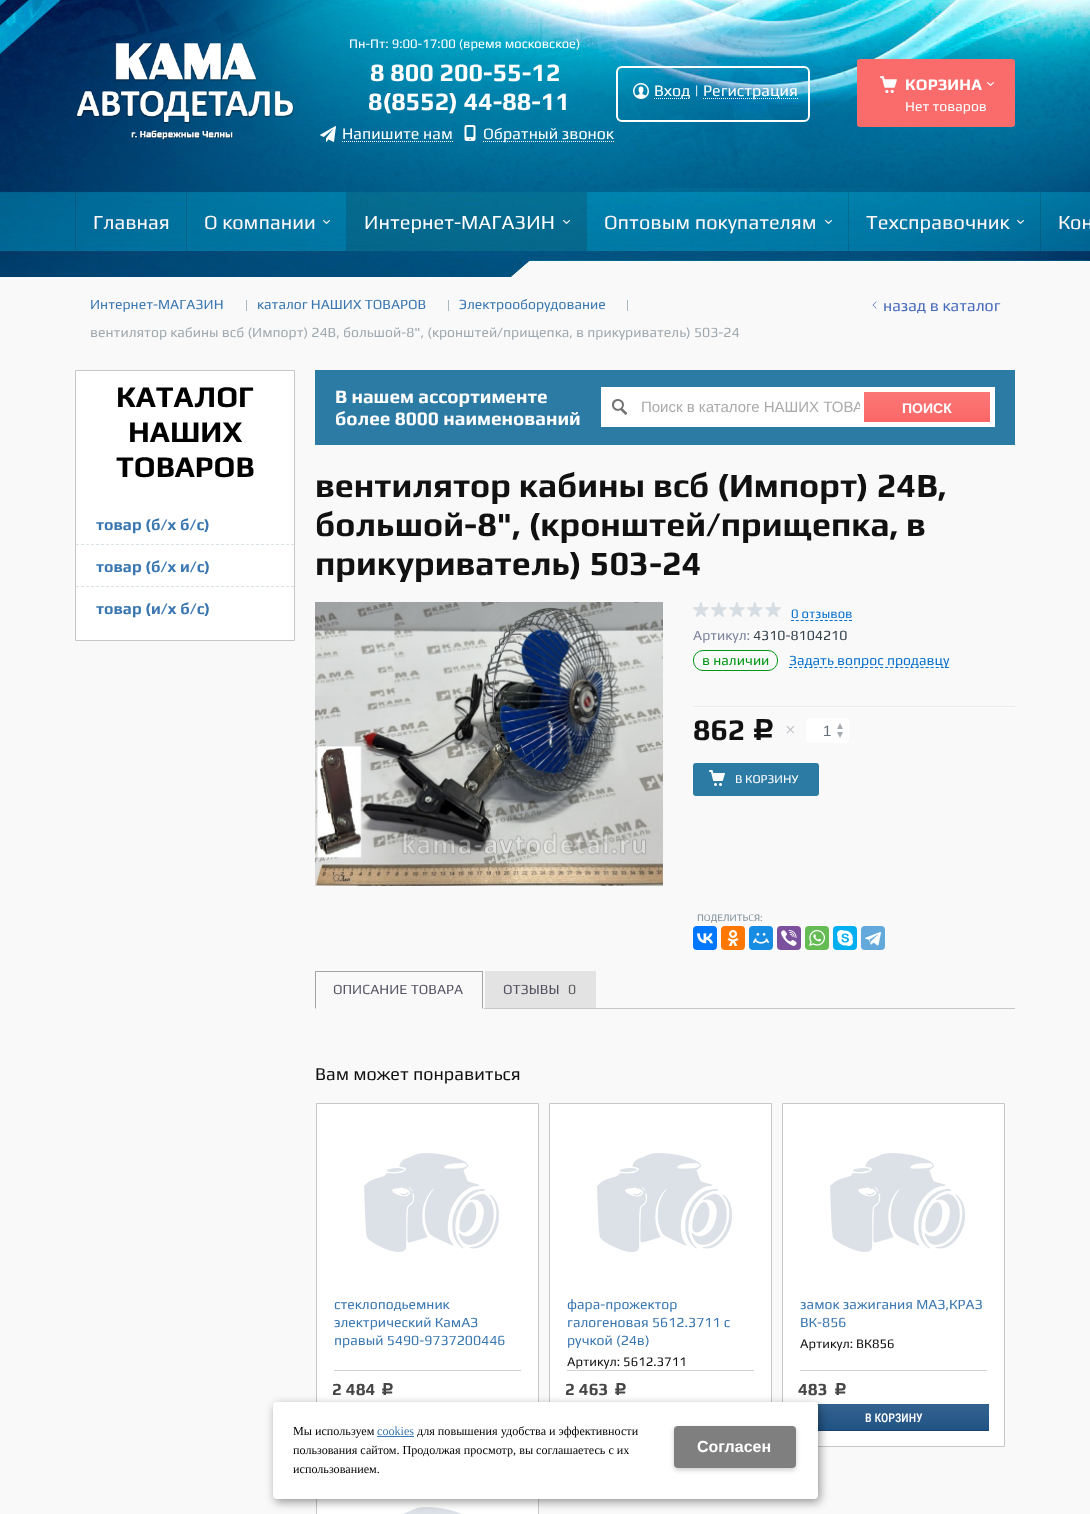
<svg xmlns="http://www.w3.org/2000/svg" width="1090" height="1514">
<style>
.a{font:13px Play;fill:#fff}
.b{font:bold 25px Play;fill:#fff}
.c{font:16px Play;fill:#fff}
.d{font:bold 16px Play;letter-spacing:0.25px;fill:#fff}
.e{font:14px Play;fill:#fff}
.f{font:20px Play;fill:#fff8f8}
.g{font:20px Play;fill:#fff}
.h{font:14px Play;fill:#3a77b0}
.i{font:14px Play;fill:#a0a9af}
.j{font:16px Play;fill:#496bbc}
.k{font:bold 30px Play;fill:#000}
.l{font:bold 16px Play;fill:#3a77b0}
.m{font:bold 19px Play;fill:#fff}
.n{font:15px Liberation Sans;fill:#aaa}
.o{font:bold 14px Liberation Sans;fill:#fff}
.p{font:bold 34px Play;fill:#111}
.q{font:13px Play;fill:#0971cc}
.r{font:14px Play;fill:#7c849e}
.s{font:14px Play;fill:#35424b}
.t{font:14px Play;fill:#009514}
.u{font:14px Play;fill:#0971cc}
.v{font:bold 30px Play;fill:#111}
.w{font:30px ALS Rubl;fill:#111}
.x{font:19px Liberation Serif;fill:#b8bcc0}
.y{font:15px Liberation Sans;fill:#636e76}
.z{font:12px Play;fill:#fff}
.a1{font:10px Play;fill:#81919c}
.b1{font:14px Play;fill:#575768}
.c1{font:14px Play;fill:#515162}
.d1{font:14px Play;fill:#5d5d5d}
.e1{font:18px Play;fill:#111}
.f1{font:bold 17px Play;fill:#464646}
.g1{font:17px ALS Rubl;fill:#464646}
.h1{font:13px Play;fill:#111}
.i1{font:500 12px Roboto Condensed;fill:#fff}
.j1{font:12.15px Liberation Serif;fill:#000}
.k1{font:12.15px Liberation Serif;fill:#3a77b0}
.l1{font:bold 16px Liberation Sans;fill:#fff}
</style>
<defs>
<linearGradient id="g1" gradientUnits="userSpaceOnUse" x1="927" y1="392" x2="927" y2="424"><stop offset="0" stop-color="#fff" stop-opacity="0.1"/><stop offset="1" stop-color="#fff" stop-opacity="0"/></linearGradient>
<linearGradient id="g2" gradientUnits="userSpaceOnUse" x1="894" y1="1404" x2="894" y2="1431"><stop offset="0" stop-color="#356390"/><stop offset="1" stop-color="#1f5284"/></linearGradient>
<clipPath id="clip1"><path d="M641 398h219v17H641z"/></clipPath>
</defs>
<rect width="100%" height="100%" fill="#f9f9f9"/>
<image href="1.png" x="0" y="0" width="1090" height="277"/>
<image href="2.png" x="76" y="43" width="218" height="97"/>
<image href="3.png" x="320" y="126" width="16" height="16"/>
<path fill="none" stroke="#fcfcfc" stroke-dasharray="1 1" d="M342 141.5h111"/>
<image href="4.png" x="464" y="125" width="12" height="16"/>
<path fill="none" stroke="#fcfcfc" stroke-dasharray="1 1" d="M483 141.5h131"/>
<rect fill="none" stroke="#fff" stroke-width="2" x="617" y="67" width="192" height="54" rx="5"/>
<image href="5.png" x="633" y="83" width="16" height="16"/>
<path fill="none" stroke="#fff" stroke-dasharray="1 1" d="M654 98.5h36"/>
<path fill="none" stroke="#fff" stroke-dasharray="1 1" d="M703 98.5h95"/>
<rect fill="#fa6c6c" x="857" y="59" width="158" height="68" rx="3"/>
<image href="6.png" x="880" y="76" width="17" height="17"/>
<image href="7.png" x="987" y="82" width="7" height="4"/>
<path fill="#00000021" d="M75 192h1v59H75z"/>
<path fill="#00000021" d="M186 192h1v59H186z"/>
<path fill="#00000021" d="M346 192h1v59H346z"/>
<image href="8.png" x="323" y="220" width="7" height="4"/>
<path fill="#1919192e" d="M347 192h240v59H347z"/>
<image href="9.png" x="563" y="220" width="7" height="4"/>
<path fill="#00000021" d="M848 192h1v59H848z"/>
<image href="10.png" x="825" y="220" width="7" height="4"/>
<path fill="#00000021" d="M1040 192h1v59H1040z"/>
<image href="11.png" x="1017" y="220" width="7" height="4"/>
<path fill="#a9b8c1" d="M246 300h1v11H246z"/>
<path fill="#a9b8c1" d="M448 300h1v11H448z"/>
<path fill="#a9b8c1" d="M627 300h1v11H627z"/>
<image href="12.png" x="872" y="301" width="5" height="8"/>
<path fill="#fff" stroke="#c7c7c7" d="M75.5 370.5h219v270H75.5z"/>
<path fill="none" stroke="#d9e2e7" stroke-dasharray="3 2" d="M76 544.5h218"/>
<path fill="none" stroke="#d9e2e7" stroke-dasharray="3 2" d="M76 586.5h218"/>
<path fill="#2c7ba4" d="M315 370h700v75H315z"/>
<path fill="#fff" d="M601 387h394v40H601z"/>
<image href="13.png" x="612" y="399" width="15" height="16"/>
<path fill="#fb6767" d="M864 392h126v30H864z"/>
<path fill="url(#g1)" d="M864 392h126v25H864z"/>
<image href="14.png" x="315" y="602" width="348" height="284"/>
<image href="15.png" x="693" y="602" width="88" height="15"/>
<path fill="none" stroke="#0971cc" stroke-dasharray="3 1.83" d="M791 620.5h61"/>
<rect fill="none" stroke="#009514" x="693.5" y="650.5" width="84" height="20" rx="9.5"/>
<path fill="none" stroke="#0971cc" stroke-dasharray="3 2.06" d="M789 667.5h160"/>
<path fill="#e8ecf0" d="M693 706h322v1H693z"/>
<rect fill="#fff" x="806" y="718" width="43" height="25" rx="4"/>
<path fill="#a4aab0" d="M843 729h-6l3-6zm-6 3h6l-3 6z"/>
<rect fill="#2c7ba4" x="693" y="763" width="126" height="33" rx="3"/>
<image href="16.png" x="709" y="770" width="16" height="16"/>
<rect fill="#07f" x="693" y="926" width="24" height="24" rx="4"/>
<image href="17.png" x="697" y="933" width="16" height="11"/>
<rect fill="#f70" x="721" y="926" width="24" height="24" rx="4"/>
<image href="18.png" x="727" y="930" width="12" height="16"/>
<rect fill="#168de2" x="749" y="926" width="24" height="24" rx="4"/>
<image href="19.png" x="753" y="933" width="16" height="11"/>
<rect fill="#7b519d" x="777" y="926" width="24" height="24" rx="4"/>
<image href="20.png" x="781" y="930" width="16" height="16"/>
<rect fill="#65bc54" x="805" y="926" width="24" height="24" rx="4"/>
<image href="21.png" x="809" y="930" width="16" height="16"/>
<rect fill="#00aff0" x="833" y="926" width="24" height="24" rx="4"/>
<image href="22.png" x="837" y="930" width="16" height="16"/>
<rect fill="#64a9dc" x="861" y="926" width="24" height="24" rx="4"/>
<image href="23.png" x="865" y="932" width="16" height="14"/>
<path fill="#a4a4a4" d="M315 971h168l-1 1h-166z"/>
<path fill="#00000057" d="M483 971v38l-1-1v-36z"/>
<path fill="#00000057" d="M315 1009v-38l1 1v36z"/>
<path fill="#c7c7c7" d="M484 1008h531v1H484z"/>
<path fill="#e3e3e3" d="M485 971h111v37H485z"/>
<path fill="none" stroke="#c7c7c7" d="M316.5 1103.5h222v343H316.5z"/>
<path fill="#fff" d="M317 1104h221v298H317z"/>
<image href="24.png" x="364" y="1153" width="135" height="99"/>
<path fill="#ced3d6" d="M334 1370h187v1H334z"/>
<path fill="none" stroke="#c7c7c7" d="M549.5 1103.5h222v343H549.5z"/>
<path fill="#fff" d="M550 1104h221v298H550z"/>
<image href="24.png" x="597" y="1153" width="135" height="99"/>
<path fill="#ced3d6" d="M567 1370h187v1H567z"/>
<path fill="none" stroke="#c7c7c7" d="M782.5 1103.5h222v343H782.5z"/>
<path fill="#fff" d="M783 1104h221v342H783z"/>
<image href="24.png" x="830" y="1153" width="135" height="99"/>
<path fill="#ced3d6" d="M800 1370h187v1H800z"/>
<path fill="#1f5284" d="M986 1404h3v27H986z"/>
<rect fill="url(#g2)" x="798" y="1404" width="191" height="27" rx="3"/>
<path fill="#19426a" d="M798 1427c0 2 1 4 3 4h185c2 0 3-2 3-4c0 2-1 3-3 3h-185c-2 0-3-1-3-3z"/>
<path fill="none" stroke="#c7c7c7" d="M316.5 1457.5h222v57H316.5z"/>
<path fill="#fff" d="M317 1499h221v15H317z"/>
<image href="25.png" x="403" y="1507" width="59" height="7"/>
<rect fill="#00000066" filter="blur(5px)" x="275" y="1405" width="545" height="97" rx="4"/>
<rect fill="#fff" x="273" y="1402" width="545" height="97" rx="4"/>
<path fill="#3a77b0" d="M377 1436h37v1H377z"/>
<rect fill="#00000033" filter="blur(2.5px)" x="674" y="1428" width="122" height="42" rx="4"/>
<rect fill="#7f7f7f" x="674" y="1426" width="122" height="42" rx="4"/>
<text class="a" x="349" y="48">Пн-Пт: 9:00-17:00 (время московское)</text>
<text class="b" x="370" y="81">8 800 200-55-12</text>
<text class="b" x="368" y="110">8(8552) 44-88-11</text>
<text class="c" x="342" y="139">Напишите нам</text>
<text class="c" x="483" y="139">Обратный звонок</text>
<text class="c" x="654" y="96">Вход |</text>
<text class="c" x="703" y="96">Регистрация</text>
<text class="d" x="905" y="90">КОРЗИНА</text>
<text class="e" x="905" y="111">Нет товаров</text>
<text class="f" x="93" y="229">Главная</text>
<text class="f" x="204" y="229">О компании</text>
<text class="g" x="364" y="229">Интернет-МАГАЗИН</text>
<text class="f" x="604" y="229">Оптовым покупателям</text>
<text class="f" x="866" y="229">Техсправочник</text>
<text class="f" x="1058" y="229">Кон</text>
<text class="h" x="90" y="309">Интернет-МАГАЗИН</text>
<text class="h" x="257" y="309">каталог НАШИХ ТОВАРОВ</text>
<text class="h" x="459" y="309">Электрооборудование</text>
<text class="i" x="90" y="337">вентилятор кабины всб (Импорт) 24В, большой-8", (кронштей/прищепка, в прикуриватель) 503-24</text>
<text class="j" x="883" y="311">назад в каталог</text>
<text class="k" x="116" y="407">КАТАЛОГ</text>
<text class="k" x="128" y="442">НАШИХ</text>
<text class="k" x="116" y="477">ТОВАРОВ</text>
<text class="l" x="96" y="530">товар (б/х б/с)</text>
<text class="l" x="96" y="572">товар (б/х и/с)</text>
<text class="l" x="96" y="614">товар (и/х б/с)</text>
<text class="m" x="335" y="403">В нашем ассортименте</text>
<text class="m" x="335" y="425">более 8000 наименований</text>
<g clip-path="url(#clip1)">
<text class="n" x="641" y="412">Поиск в каталоге НАШИХ ТОВА</text>
</g>
<text class="o" x="902" y="413">ПОИСК</text>
<text class="p" x="315" y="497">вентилятор кабины всб (Импорт) 24В,</text>
<text class="p" x="315" y="536">большой-8", (кронштей/прищепка, в</text>
<text class="p" x="315" y="575">прикуриватель) 503-24</text>
<text class="q" x="791" y="618">0 отзывов</text>
<text class="r" x="693" y="640">Артикул:</text>
<text class="s" x="753" y="640">4310-8104210</text>
<text class="t" x="702" y="665">в наличии</text>
<text class="u" x="789" y="665">Задать вопрос продавцу</text>
<text class="v" x="693" y="740">862</text>
<text class="w" x="752" y="740">c</text>
<text class="x" x="785" y="736">×</text>
<text class="y" x="823" y="736">1</text>
<text class="z" x="735" y="783">В КОРЗИНУ</text>
<text class="a1" x="697" y="921">ПОДЕЛИТЬСЯ:</text>
<text class="b1" x="333" y="994">ОПИСАНИЕ ТОВАРА</text>
<text class="c1" x="503" y="994">ОТЗЫВЫ</text>
<text class="d1" x="568" y="994">0</text>
<text class="e1" x="315" y="1080">Вам может понравиться</text>
<text class="h" x="334" y="1309">стеклоподьемник</text>
<text class="h" x="334" y="1327">электрический КамАЗ</text>
<text class="h" x="334" y="1345">правый 5490-9737200446</text>
<text class="f1" x="332" y="1395">2 484</text>
<text class="g1" x="381" y="1395">c</text>
<text class="h" x="567" y="1309">фара-прожектор</text>
<text class="h" x="567" y="1327">галогеновая 5612.3711 с</text>
<text class="h" x="567" y="1345">ручкой (24в)</text>
<text class="h1" x="567" y="1366">Артикул: 5612.3711</text>
<text class="f1" x="565" y="1395">2 463</text>
<text class="g1" x="614" y="1395">c</text>
<text class="h" x="800" y="1309">замок зажигания МАЗ,КРАЗ</text>
<text class="h" x="800" y="1327">ВК-856</text>
<text class="h1" x="800" y="1348">Артикул: ВК856</text>
<text class="f1" x="798" y="1395">483</text>
<text class="g1" x="834" y="1395">c</text>
<text class="i1" x="865" y="1422">В КОРЗИНУ</text>
<text class="j1" x="293" y="1435">Мы используем</text>
<text class="k1" x="377" y="1435">cookies</text>
<text class="j1" x="417" y="1435">для повышения удобства и эффективности</text>
<text class="j1" x="293" y="1454">пользования сайтом. Продолжая просмотр, вы соглашаетесь с их</text>
<text class="j1" x="293" y="1473">использованием.</text>
<text class="l1" x="697" y="1452">Cогласен</text>
</svg>
